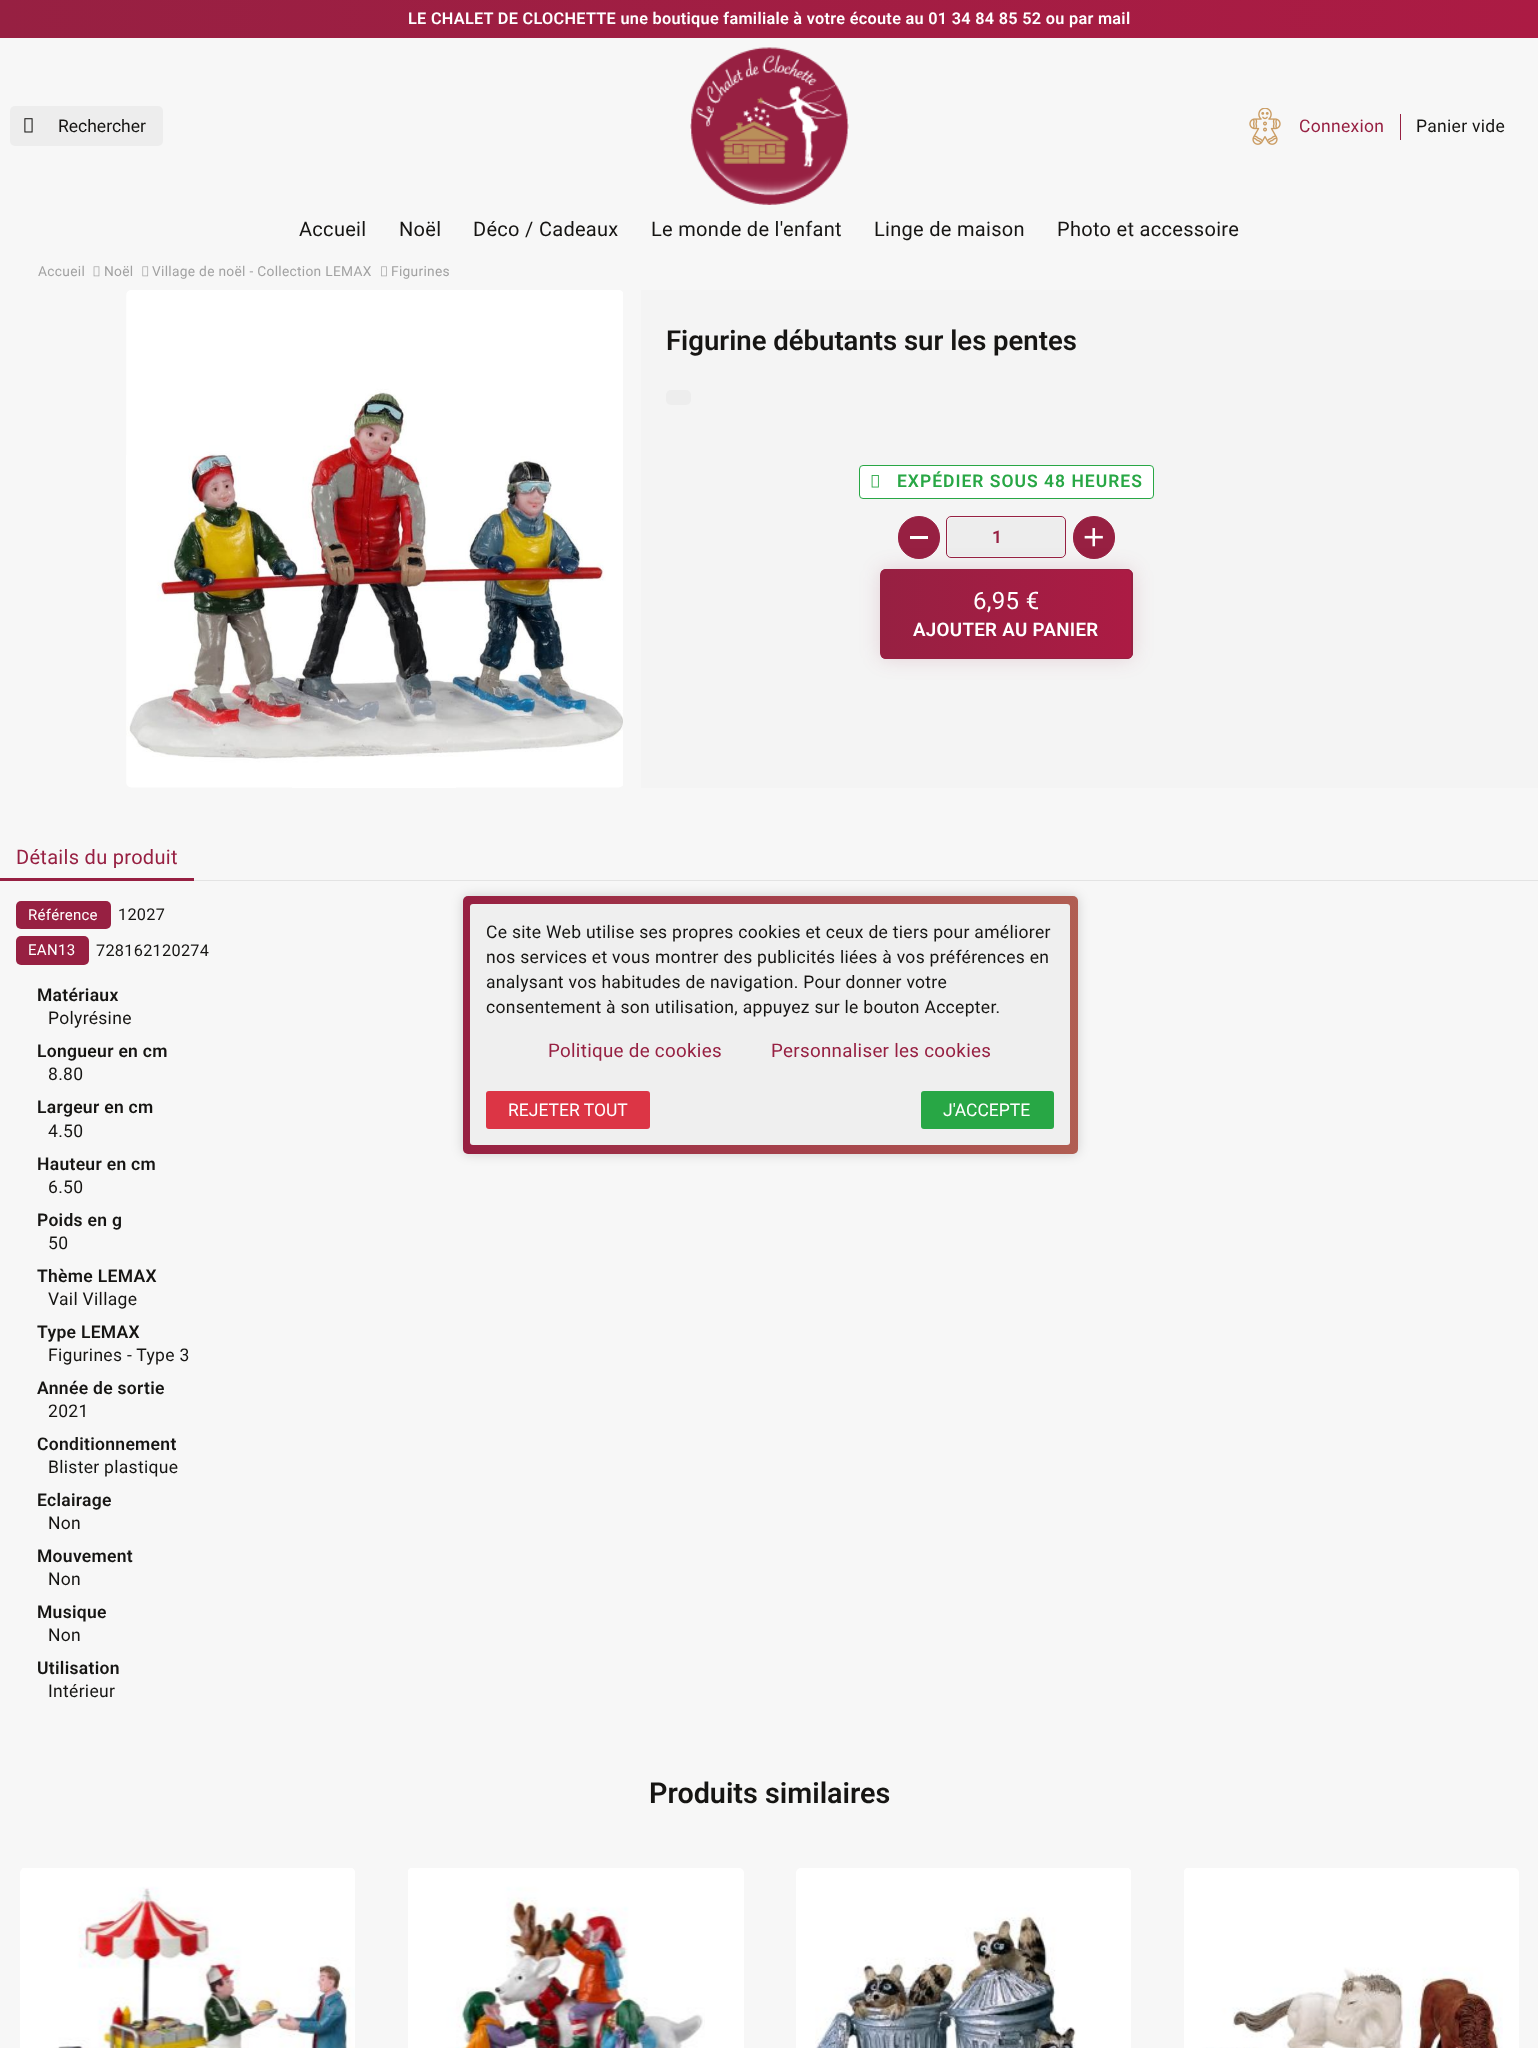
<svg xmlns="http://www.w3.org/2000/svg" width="1538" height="2048">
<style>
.a{font:600 16.25px Roboto;letter-spacing:0.3px;fill:#fff}
.b{font:17.5px Roboto;fill:#161513}
.c{font:17.5px Roboto;letter-spacing:0.3px;fill:#972042}
.d{font:17.5px Roboto;letter-spacing:0.3px;fill:#161513}
.e{font:20px Roboto;letter-spacing:0.3px;fill:#161513}
.f{font:13.75px Roboto;letter-spacing:0.3px;fill:#a2a2a2}
.g{font:600 27.5px Roboto;fill:#161513}
.h{font:600 17.5px Roboto;letter-spacing:1px;fill:#28a745}
.i{font:600 17.5px Roboto;fill:#972042}
.j{font:24px Roboto;letter-spacing:0.3px;fill:#fff}
.k{font:600 18.75px Roboto;letter-spacing:0.3px;fill:#fff}
.l{font:20px Roboto;letter-spacing:0.3px;fill:#972042}
.m{font:15px Roboto;letter-spacing:0.3px;fill:#fff}
.n{font:16.25px Roboto;letter-spacing:0.3px;fill:#161513}
.o{font:600 17.5px Roboto;letter-spacing:0.3px;fill:#161513}
.p{font:600 28.75px Roboto;fill:#161513}
.q{font:18.75px Roboto;letter-spacing:0.3px;fill:#972042}
.r{font:17.5px Roboto;fill:#fff}
</style>
<defs>
<linearGradient id="g1" gradientUnits="userSpaceOnUse" x1="0" y1="19" x2="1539" y2="19"><stop offset="0" stop-color="#972042"/><stop offset="1" stop-color="#ac1b44"/></linearGradient>
<clipPath id="clip1"><rect x="880" y="569" width="253" height="90" rx="6"/></clipPath>
<linearGradient id="g2" gradientUnits="userSpaceOnUse" x1="881" y1="614" x2="1131" y2="614"><stop offset="0" stop-color="#972042"/><stop offset="1" stop-color="#ac1b44"/></linearGradient>
<linearGradient id="g3" gradientUnits="userSpaceOnUse" x1="1131" y1="614" x2="1381" y2="614"><stop offset="0" stop-color="#972042"/><stop offset="1" stop-color="#ac1b44"/></linearGradient>
<linearGradient id="g4" gradientUnits="userSpaceOnUse" x1="462" y1="1025" x2="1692" y2="1025"><stop offset="0" stop-color="#972042"/><stop offset="1" stop-color="#ca9c63"/></linearGradient>
</defs>
<rect width="100%" height="100%" fill="#f7f7f7"/>
<path fill="url(#g1)" d="M0 0h1538v38H0z"/>
<rect fill="#ededed" x="10" y="106" width="153" height="40" rx="5"/>
<image href="1.png" x="24" y="118" width="9" height="15"/>
<image href="2.png" x="690" y="47" width="159" height="158"/>
<image href="3.png" x="1249" y="108" width="32" height="37"/>
<path fill="#972042" d="M1400 114h1v26H1400z"/>
<image href="4.png" x="93" y="266" width="7" height="11"/>
<image href="5.png" x="142" y="266" width="7" height="11"/>
<image href="6.png" x="381" y="266" width="6" height="11"/>
<path fill="#f4f4f4" d="M641 290h897v498H641z"/>
<image href="7.png" x="126" y="290" width="497" height="498"/>
<rect fill="#ededed" x="666" y="390" width="25" height="15" rx="5"/>
<rect fill="#fff" stroke="#28a745" x="859.5" y="465.5" width="294" height="33" rx="3.5"/>
<image href="8.png" x="871" y="475" width="8" height="13"/>
<rect fill="#972042" stroke="#972042" x="898.5" y="516.5" width="41" height="42" rx="20.5"/>
<path fill="#fff" d="M910 536h18v3H910z"/>
<rect fill="#ededed" x="948" y="518" width="117" height="38" rx="4"/>
<rect fill="none" stroke="#972042" x="946.5" y="516.5" width="119" height="41" rx="4.5"/>
<rect fill="#972042" stroke="#972042" x="1073.5" y="516.5" width="41" height="42" rx="20.5"/>
<image href="9.png" x="1084" y="528" width="19" height="19"/>
<rect fill="#97204229" filter="blur(10px)" x="880" y="569" width="253" height="90" rx="6"/>
<g clip-path="url(#clip1)">
<path fill="url(#g2)" d="M881 569h250v90H881z"/>
<path fill="url(#g3)" d="M1131 569h2v90H1131z"/>
</g>
<rect fill="none" stroke="#972042" x="880.5" y="569.5" width="252" height="89" rx="5.5"/>
<path fill="#e3e3e3" d="M194 880h1344v1H194z"/>
<path fill="#972042" d="M0 878h194v3H0z"/>
<rect fill="#972042" x="16" y="901" width="95" height="28" rx="5"/>
<rect fill="#972042" x="16" y="936" width="73" height="29" rx="5"/>
<rect fill="#fff" x="20" y="1868" width="335" height="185" rx="5"/>
<image href="10.png" x="22" y="1868" width="333" height="180"/>
<rect fill="#fff" x="408" y="1868" width="336" height="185" rx="5"/>
<image href="11.png" x="408" y="1868" width="297" height="180"/>
<rect fill="#fff" x="796" y="1868" width="335" height="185" rx="5"/>
<image href="12.png" x="815" y="1868" width="316" height="180"/>
<rect fill="#fff" x="1184" y="1868" width="335" height="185" rx="5"/>
<image href="13.png" x="1184" y="1868" width="319" height="180"/>
<rect fill="#00000029" filter="blur(6px)" x="463" y="896" width="615" height="258" rx="5"/>
<rect fill="url(#g4)" x="463" y="896" width="615" height="258" rx="5"/>
<rect fill="#efefef" x="470" y="904" width="600" height="241" rx="3"/>
<rect fill="#dc3545" x="486" y="1091" width="164" height="38" rx="3"/>
<rect fill="#28a745" x="921" y="1091" width="133" height="38" rx="3"/>
<text class="a" x="408" y="24">LE CHALET DE CLOCHETTE une boutique familiale à votre écoute au 01 34 84 85 52 ou par mail</text>
<text class="b" x="58" y="132">Rechercher</text>
<text class="c" x="1299" y="132">Connexion</text>
<text class="d" x="1416" y="132">Panier vide</text>
<text class="e" x="299" y="236">Accueil</text>
<text class="e" x="399" y="236">Noël</text>
<text class="e" x="473" y="236">Déco / Cadeaux</text>
<text class="e" x="651" y="236">Le monde de l'enfant</text>
<text class="e" x="874" y="236">Linge de maison</text>
<text class="e" x="1057" y="236">Photo et accessoire</text>
<text class="f" x="38" y="276">Accueil</text>
<text class="f" x="104" y="276">Noël</text>
<text class="f" x="152" y="276">Village de noël - Collection LEMAX</text>
<text class="f" x="391" y="276">Figurines</text>
<text class="g" x="666" y="350">Figurine débutants sur les pentes</text>
<text class="h" x="897" y="487">EXPÉDIER SOUS 48 HEURES</text>
<text class="i" x="992" y="543">1</text>
<text class="j" x="973" y="609">6,95 €</text>
<text class="k" x="913" y="636">AJOUTER AU PANIER</text>
<text class="l" x="16" y="864">Détails du produit</text>
<text class="m" x="28" y="920">Référence</text>
<text class="n" x="118" y="920">12027</text>
<text class="m" x="28" y="955">EAN13</text>
<text class="n" x="96" y="956">728162120274</text>
<text class="o" x="37" y="1001">Matériaux</text>
<text class="d" x="48" y="1024">Polyrésine</text>
<text class="o" x="37" y="1057">Longueur en cm</text>
<text class="d" x="48" y="1080">8.80</text>
<text class="o" x="37" y="1113">Largeur en cm</text>
<text class="d" x="48" y="1137">4.50</text>
<text class="o" x="37" y="1170">Hauteur en cm</text>
<text class="d" x="48" y="1193">6.50</text>
<text class="o" x="37" y="1226">Poids en g</text>
<text class="d" x="48" y="1249">50</text>
<text class="o" x="37" y="1282">Thème LEMAX</text>
<text class="d" x="48" y="1305">Vail Village</text>
<text class="o" x="37" y="1338">Type LEMAX</text>
<text class="d" x="48" y="1361">Figurines - Type 3</text>
<text class="o" x="37" y="1394">Année de sortie</text>
<text class="d" x="48" y="1417">2021</text>
<text class="o" x="37" y="1450">Conditionnement</text>
<text class="d" x="48" y="1473">Blister plastique</text>
<text class="o" x="37" y="1506">Eclairage</text>
<text class="d" x="48" y="1529">Non</text>
<text class="o" x="37" y="1562">Mouvement</text>
<text class="d" x="48" y="1585">Non</text>
<text class="o" x="37" y="1618">Musique</text>
<text class="d" x="48" y="1641">Non</text>
<text class="o" x="37" y="1674">Utilisation</text>
<text class="d" x="48" y="1697">Intérieur</text>
<text class="p" x="649" y="1803">Produits similaires</text>
<text class="d" x="486" y="938">Ce site Web utilise ses propres cookies et ceux de tiers pour améliorer</text>
<text class="d" x="486" y="963">nos services et vous montrer des publicités liées à vos préférences en</text>
<text class="d" x="486" y="988">analysant vos habitudes de navigation. Pour donner votre</text>
<text class="d" x="486" y="1013">consentement à son utilisation, appuyez sur le bouton Accepter.</text>
<text class="q" x="548" y="1057">Politique de cookies</text>
<text class="q" x="771" y="1057">Personnaliser les cookies</text>
<text class="r" x="508" y="1116">REJETER TOUT</text>
<text class="r" x="943" y="1116">J'ACCEPTE</text>
</svg>
